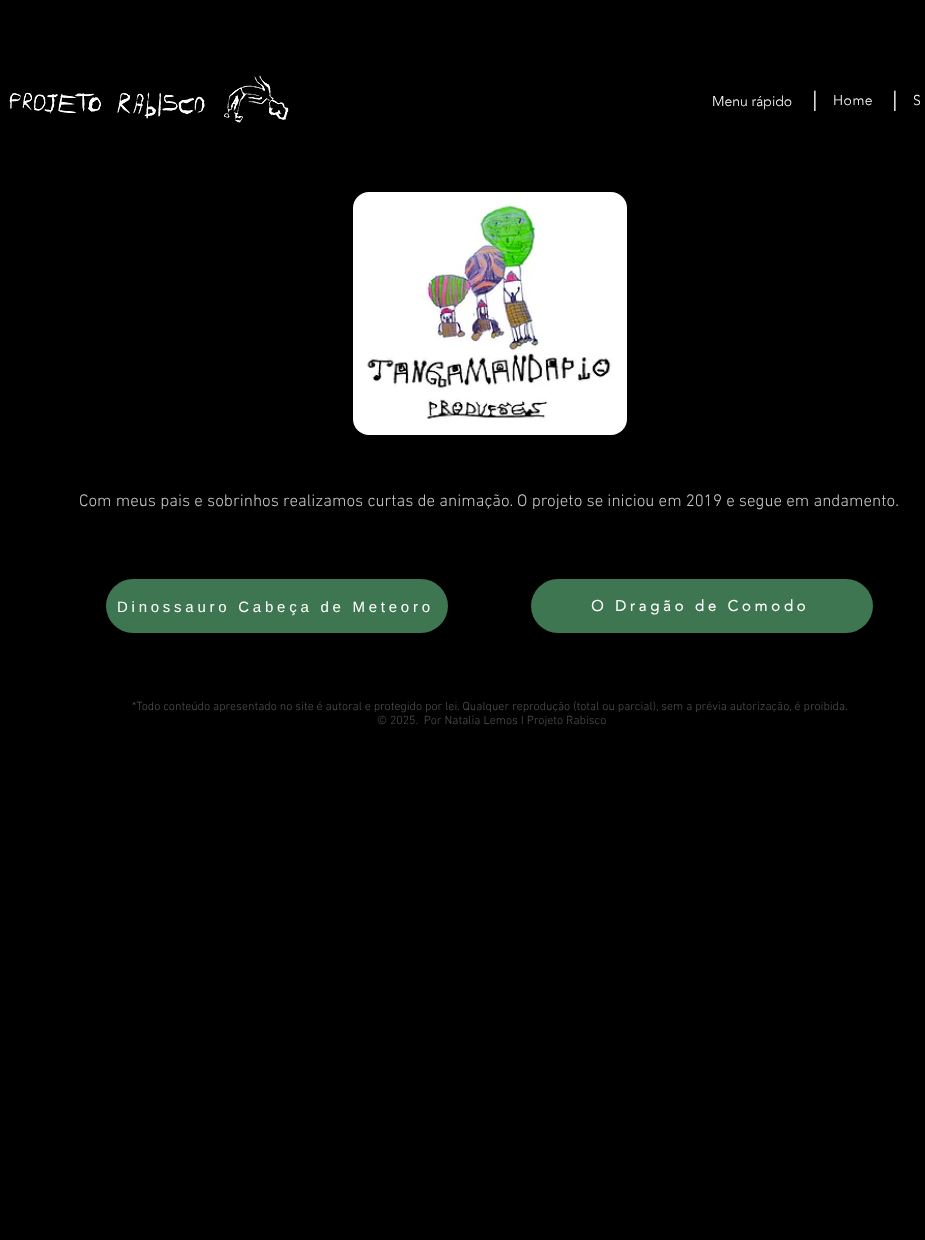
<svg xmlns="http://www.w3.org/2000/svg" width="925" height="1240">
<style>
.a{font:300 14px 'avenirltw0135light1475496';fill:#fff}
.b{font:300 27px futura;fill:#fff}
.c{font:300 14px 'avenirltw0135light1475496';letter-spacing:0.5px;fill:#fff}
.d{font:300 17px 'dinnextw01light';fill:#ccc}
.e{font:15px Liberation Sans;letter-spacing:3.75px;fill:#fff}
.f{font:bold 15px 'avenirltw0135light1475496';letter-spacing:3.75px;fill:#fff}
.g{font:300 12px 'dinnextw01light';fill:#555}
</style>
<rect width="100%" height="100%" fill="#000"/>
<image href="1.png" x="9" y="92" width="196" height="27"/>
<image href="2.png" x="224" y="75" width="65" height="48"/>
<image href="3.png" x="353" y="192" width="274" height="243"/>
<rect fill="#3f7652" x="106" y="579" width="342" height="54" rx="27"/>
<rect fill="#3f7652" x="531" y="579" width="342" height="54" rx="27"/>
<text class="a" x="712" y="106">Menu rápido</text>
<text class="b" x="812" y="111">I</text>
<text class="c" x="833" y="105">Home</text>
<text class="b" x="892" y="111">I</text>
<text class="c" x="913" y="105">S</text>
<text class="d" x="79" y="506">Com meus pais e sobrinhos realizamos curtas de animação. O projeto se iniciou em 2019 e segue em andamento.</text>
<text class="e" x="117" y="612">Dinossauro Cabeça de Meteoro</text>
<text class="f" x="591" y="611">O Dragão de Comodo</text>
<text class="g" x="132" y="710">*Todo conteúdo apresentado no site é autoral e protegido por lei. Qualquer reprodução (total ou parcial), sem a prévia autorização, é proibida.</text>
<text class="g" xml:space="preserve" x="377" y="724">© 2025.  Por Natalia Lemos I Projeto Rabisco</text>
</svg>
